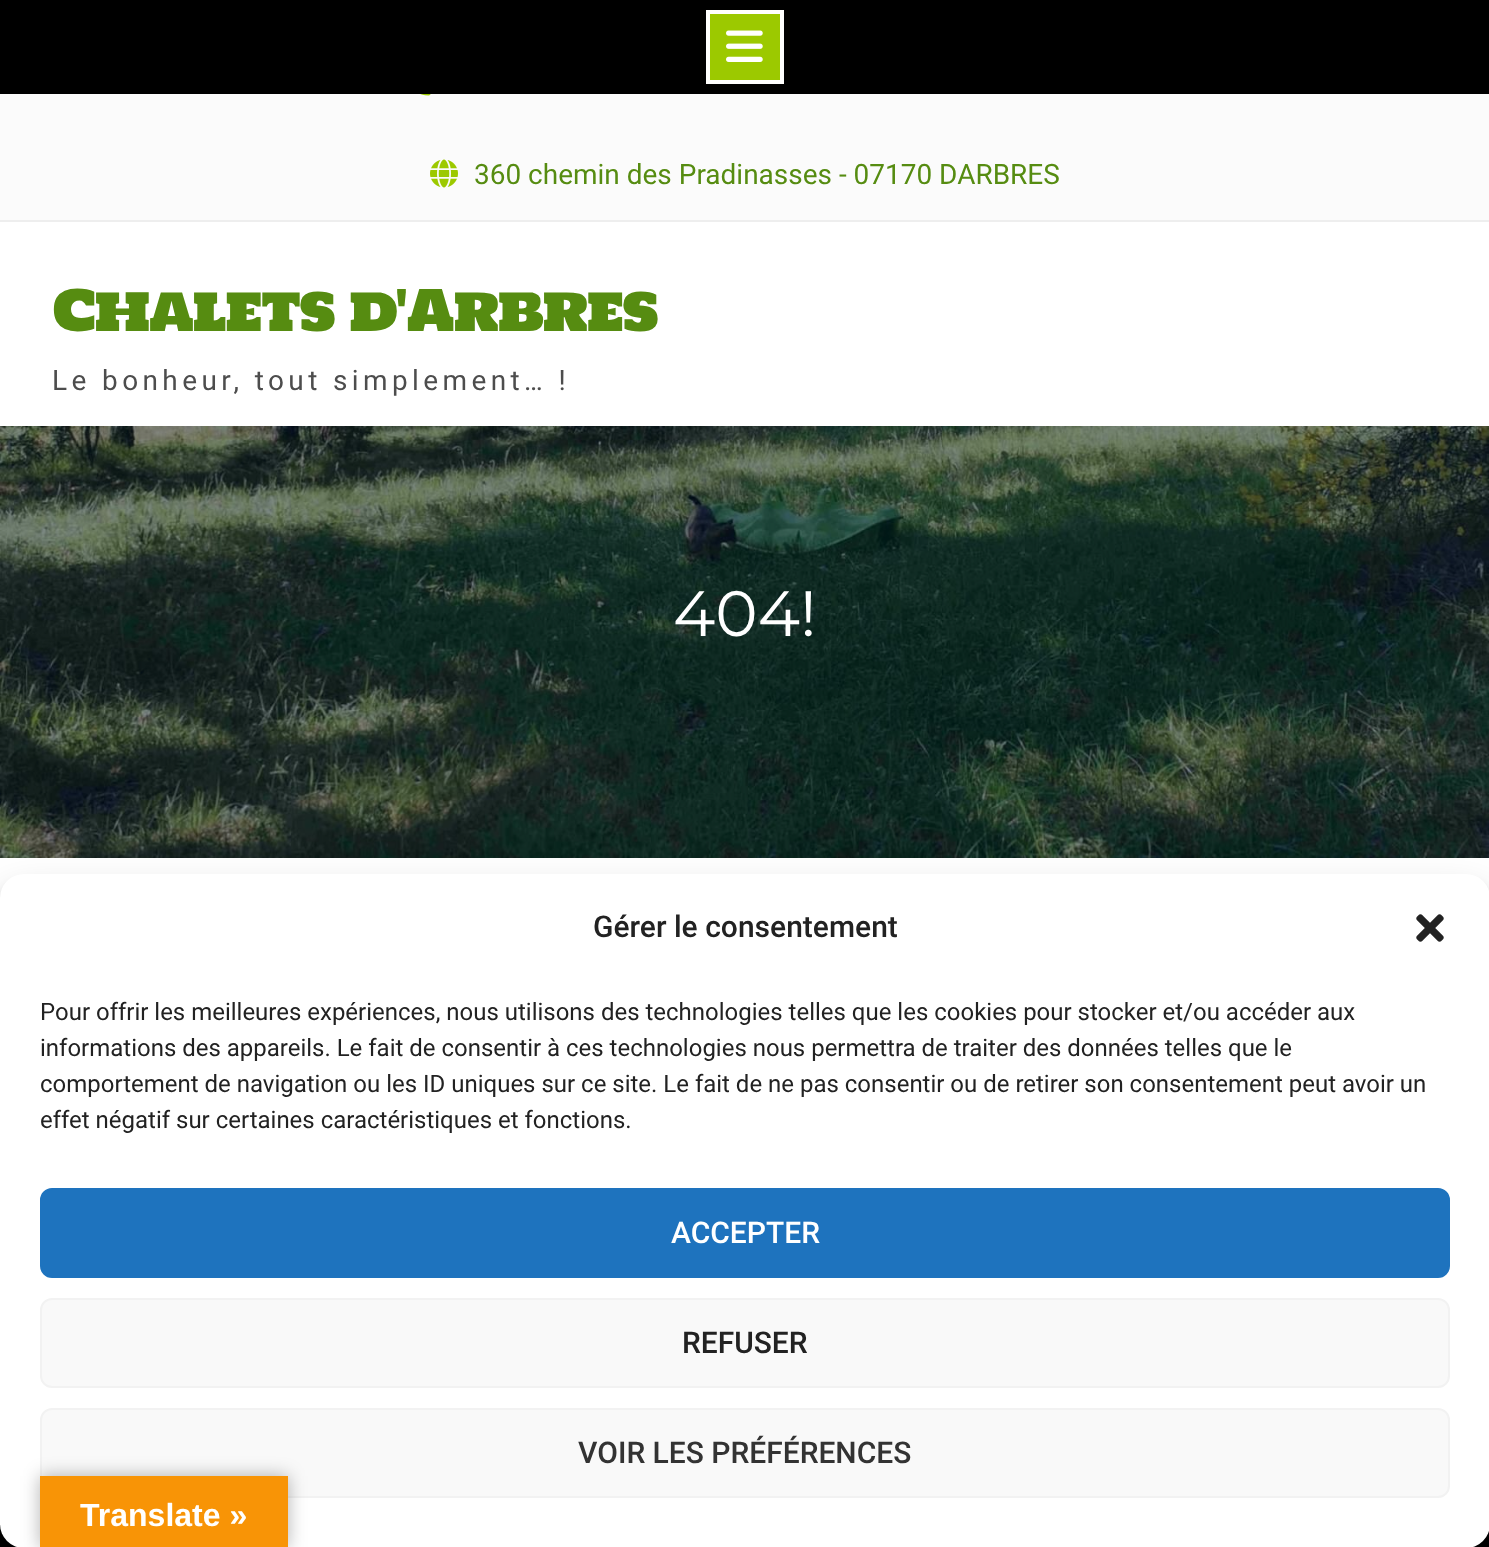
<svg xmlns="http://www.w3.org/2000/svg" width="1489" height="1547">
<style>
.a{font:28px Roboto;fill:#568c11}
.b{font:56px Holtwood One SC;letter-spacing:-2px;fill:#568c11}
.c{font:28px Roboto;letter-spacing:4.4px;fill:#4d4d4d}
.d{font:64px Montserrat;fill:#fff}
.e{font:500 30px Roboto;fill:#222}
.f{font:24px Roboto;fill:#222}
.g{font:500 30px Roboto;fill:#fff}
.h{font:500 30px Roboto;fill:#333}
.i{font:bold 32px Liberation Sans;fill:#fff}
</style>
<rect width="100%" height="100%" fill="#fff"/>
<path fill="#000" d="M0 0h1489v94H0z"/>
<path fill="#9cc900" stroke="#fffffe" stroke-width="4" d="M708 12h74v70H708z"/>
<image href="1.png" x="726" y="30" width="37" height="32"/>
<path fill="#fbfbfb" d="M0 94h1489v126H0z"/>
<path fill="#eee" d="M0 220h1489v2H0z"/>
<image href="2.png" x="420" y="94" width="11" height="2"/>
<image href="3.png" x="430" y="159" width="28" height="29"/>
<image href="4.png" x="0" y="426" width="1489" height="432"/>
<path fill="#000" d="M0 1524h1489v23H0z"/>
<rect fill="#0000003b" filter="blur(6px)" y="886" width="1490" height="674" rx="24"/>
<rect fill="#00000030" filter="blur(20px)" y="894" width="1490" height="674" rx="24"/>
<rect fill="#fff" y="874" width="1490" height="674" rx="24"/>
<image href="5.png" x="1416" y="914" width="28" height="28"/>
<rect fill="#1e73be" stroke="#1e73be" stroke-width="2" x="41" y="1189" width="1408" height="88" rx="11"/>
<rect fill="#f9f9f9" stroke="#f2f2f2" stroke-width="2" x="41" y="1299" width="1408" height="88" rx="11"/>
<rect fill="#f9f9f9" stroke="#f2f2f2" stroke-width="2" x="41" y="1409" width="1408" height="88" rx="11"/>
<path fill="#0000004d" filter="blur(9px)" d="M40 1476h248v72H40z"/>
<path fill="#f89406" d="M40 1476h248v71H40z"/>
<text class="a" x="474" y="184">360 chemin des Pradinasses - 07170 DARBRES</text>
<text class="b" x="52" y="331">Chalets d'Arbres</text>
<text class="c" x="52" y="390">Le bonheur, tout simplement… !</text>
<text class="d" x="673" y="636">404!</text>
<text class="e" x="593" y="937">Gérer le consentement</text>
<text class="f" x="40" y="1020">Pour offrir les meilleures expériences, nous utilisons des technologies telles que les cookies pour stocker et/ou accéder aux</text>
<text class="f" x="40" y="1056">informations des appareils. Le fait de consentir à ces technologies nous permettra de traiter des données telles que le</text>
<text class="f" x="40" y="1092">comportement de navigation ou les ID uniques sur ce site. Le fait de ne pas consentir ou de retirer son consentement peut avoir un</text>
<text class="f" x="40" y="1128">effet négatif sur certaines caractéristiques et fonctions.</text>
<text class="g" x="671" y="1243">ACCEPTER</text>
<text class="e" x="682" y="1353">REFUSER</text>
<text class="h" x="578" y="1463">VOIR LES PRÉFÉRENCES</text>
<text class="i" x="80" y="1526">Translate »</text>
</svg>
